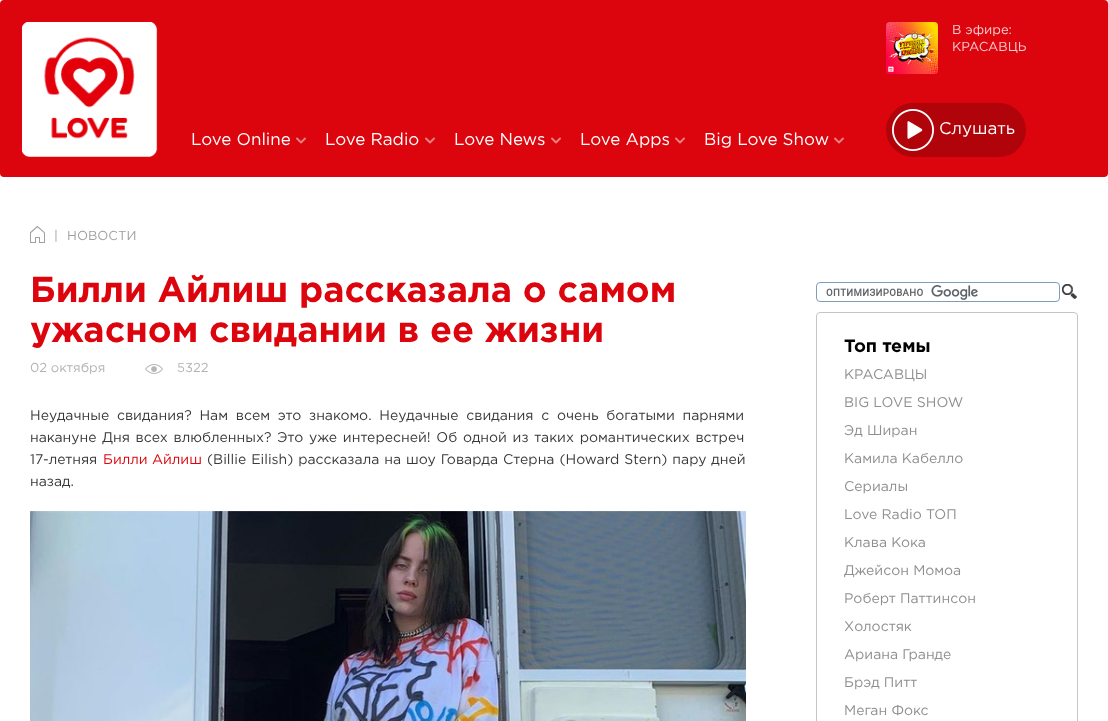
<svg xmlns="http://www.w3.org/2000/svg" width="1108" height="721">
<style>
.a{font:13px Gotham;fill:#f8cdcf}
.b{font:17px Gotham;fill:#fff}
.c{font:13px Gotham;fill:#a0a0a0}
.d{font:bold 36px Gotham;fill:#dc050d}
.e{font:13px Gotham;fill:#b4b4b4}
.f{font:14px Gotham;fill:#393939}
.g{font:14px Gotham;fill:#dc050d}
.h{font:bold 18px Gotham;fill:#010101}
.i{font:14px Gotham;fill:#8f8f8f}
</style>
<defs>
<clipPath id="clip1"><path d="M952 22h74v34H952z"/></clipPath>
</defs>
<rect width="100%" height="100%" fill="#fff"/>
<rect fill="#dc050d" width="1108" height="177" rx="4"/>
<image href="1.png" x="22" y="22" width="136" height="135"/>
<image href="2.png" x="886" y="22" width="52" height="52"/>
<rect fill="#b0040a" x="886" y="103" width="140" height="54" rx="27"/>
<image href="3.png" x="892" y="109" width="42" height="42"/>
<image href="4.png" x="296" y="137" width="10" height="7"/>
<image href="4.png" x="425" y="137" width="10" height="7"/>
<image href="4.png" x="551" y="137" width="10" height="7"/>
<image href="4.png" x="675" y="137" width="10" height="7"/>
<image href="4.png" x="834" y="137" width="10" height="7"/>
<image href="5.png" x="30" y="226" width="15" height="17"/>
<image href="6.png" x="145" y="364" width="18" height="10"/>
<image href="7.png" x="30" y="511" width="716" height="210"/>
<image href="8.png" x="826" y="285" width="152" height="15"/>
<rect fill="none" stroke="#7e9db9" x="816.5" y="282.5" width="243" height="19" rx="3.5"/>
<image href="9.png" x="1062" y="284" width="15" height="15"/>
<rect fill="none" stroke="#c5c5c5" x="816.5" y="312.5" width="261" height="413" rx="3.5"/>
<text class="a" x="952" y="34">В эфире:</text>
<g clip-path="url(#clip1)">
<text class="a" x="952" y="51">КРАСАВЦЫ</text>
</g>
<text class="b" x="939" y="134">Слушать</text>
<text class="b" x="191" y="145">Love Online</text>
<text class="b" x="325" y="145">Love Radio</text>
<text class="b" x="454" y="145">Love News</text>
<text class="b" x="580" y="145">Love Apps</text>
<text class="b" x="704" y="145">Big Love Show</text>
<text class="c" x="54" y="240">|</text>
<text class="c" x="67" y="240">НОВОСТИ</text>
<text class="d" x="30" y="302">Билли Айлиш рассказала о самом</text>
<text class="d" x="30" y="342">ужасном свидании в ее жизни</text>
<text class="e" x="30" y="372">02 октября</text>
<text class="e" x="177" y="372">5322</text>
<text class="f" x="30" y="420" word-spacing="3.5">Неудачные свидания? Нам всем это знакомо. Неудачные свидания с очень богатыми парнями</text>
<text class="f" x="30" y="442" word-spacing="1.5">накануне Дня всех влюбленных? Это уже интересней! Об одной из таких романтических встреч</text>
<text class="f" x="30" y="464">17-летняя</text>
<text class="g" x="103" y="464">Билли Айлиш</text>
<text class="f" x="207" y="464" word-spacing="0.75">(Billie Eilish) рассказала на шоу Говарда Стерна (Howard Stern) пару дней</text>
<text class="f" x="30" y="486">назад.</text>
<text class="h" x="844" y="352">Топ темы</text>
<text class="i" x="844" y="379">КРАСАВЦЫ</text>
<text class="i" x="844" y="407">BIG LOVE SHOW</text>
<text class="i" x="844" y="435">Эд Ширан</text>
<text class="i" x="844" y="463">Камила Кабелло</text>
<text class="i" x="844" y="491">Сериалы</text>
<text class="i" x="844" y="519">Love Radio ТОП</text>
<text class="i" x="844" y="547">Клава Кока</text>
<text class="i" x="844" y="575">Джейсон Момоа</text>
<text class="i" x="844" y="603">Роберт Паттинсон</text>
<text class="i" x="844" y="631">Холостяк</text>
<text class="i" x="844" y="659">Ариана Гранде</text>
<text class="i" x="844" y="687">Брэд Питт</text>
<text class="i" x="844" y="715">Меган Фокс</text>
</svg>
